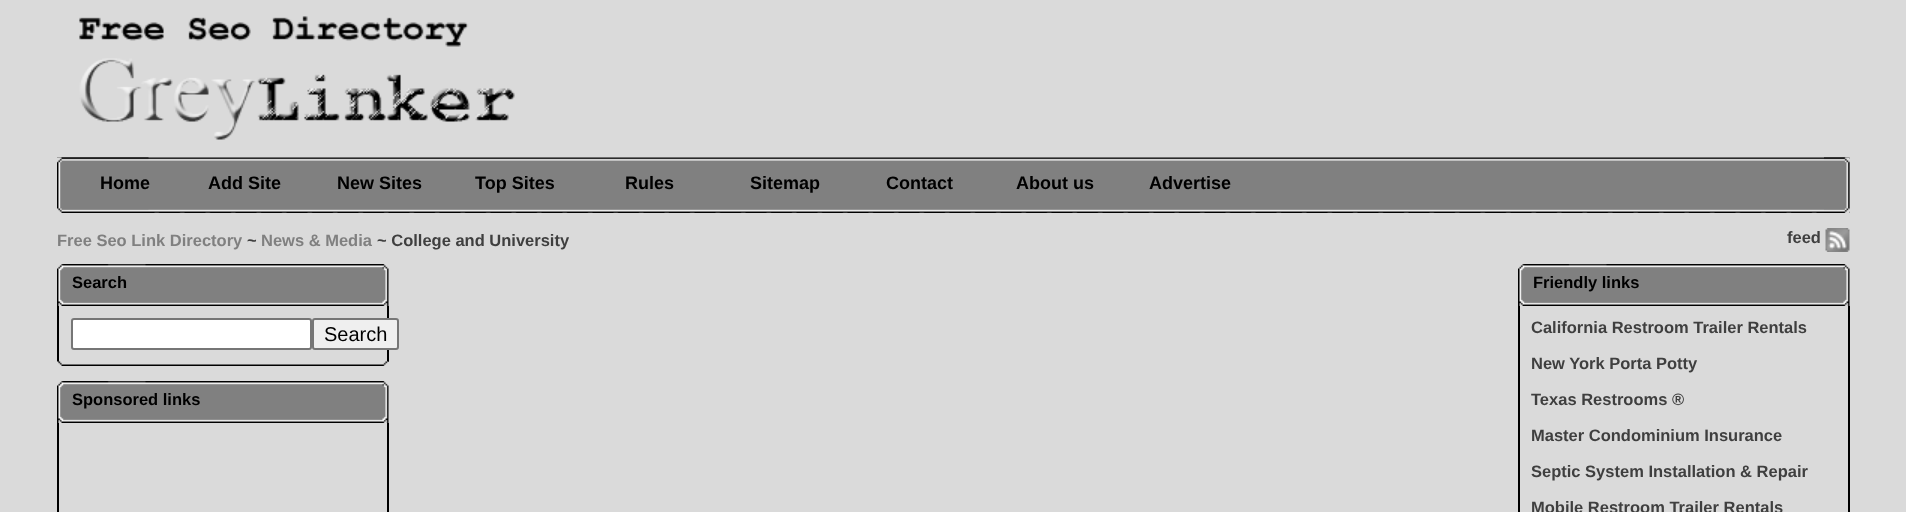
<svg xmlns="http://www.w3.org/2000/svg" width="1906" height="512">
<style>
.a{font:bold 18px Liberation Sans;fill:#000}
.b{font:bold 16.5px Liberation Sans;fill:#808080}
.c{font:bold 16.5px Liberation Sans;fill:#3f3f3f}
.d{font:bold 16.5px Liberation Sans;fill:#000}
.e{font:20px Liberation Sans;fill:#000}
</style>
<rect width="100%" height="100%" fill="#dadada"/>
<image href="1.png" x="79" y="16" width="436" height="124"/>
<image href="2.png" x="57" y="157" width="1793" height="56"/>
<image href="3.png" x="57" y="157" width="92" height="56"/>
<image href="4.png" x="1824" y="157" width="26" height="56"/>
<image href="5.png" x="1825" y="228" width="25" height="24"/>
<image href="6.png" x="57" y="264" width="332" height="42"/>
<path fill="#000" d="M387 306h2v56H387z"/>
<path fill="#000" d="M57 306h2v56H57z"/>
<rect fill="#fff" stroke="#767676" stroke-width="2" x="72" y="319" width="239" height="30" rx="2"/>
<rect fill="#efefef" stroke="#767676" stroke-width="2" x="313" y="319" width="85" height="30" rx="2"/>
<image href="7.png" x="57" y="361" width="332" height="5"/>
<image href="6.png" x="57" y="381" width="332" height="42"/>
<path fill="#000" d="M387 423h2v89H387z"/>
<path fill="#000" d="M57 423h2v89H57z"/>
<image href="8.png" x="1518" y="264" width="332" height="42"/>
<path fill="#000" d="M1848 306h2v206H1848z"/>
<path fill="#000" d="M1518 306h2v206H1518z"/>
<text class="a" x="100" y="189">Home</text>
<text class="a" x="208" y="189">Add Site</text>
<text class="a" x="337" y="189">New Sites</text>
<text class="a" x="475" y="189">Top Sites</text>
<text class="a" x="625" y="189">Rules</text>
<text class="a" x="750" y="189">Sitemap</text>
<text class="a" x="886" y="189">Contact</text>
<text class="a" x="1016" y="189">About us</text>
<text class="a" x="1149" y="189">Advertise</text>
<text class="b" x="57" y="246">Free Seo Link Directory</text>
<text class="c" x="247" y="246">~</text>
<text class="b" x="261" y="246">News &amp; Media</text>
<text class="c" x="377" y="246">~ College and University</text>
<text class="c" x="1787" y="243">feed</text>
<text class="d" x="72" y="288">Search</text>
<text class="e" x="324" y="341">Search</text>
<text class="d" x="72" y="405">Sponsored links</text>
<text class="d" x="1533" y="288">Friendly links</text>
<text class="c" x="1531" y="333">California Restroom Trailer Rentals</text>
<text class="c" x="1531" y="369">New York Porta Potty</text>
<text class="c" x="1531" y="405">Texas Restrooms ®</text>
<text class="c" x="1531" y="441">Master Condominium Insurance</text>
<text class="c" x="1531" y="477">Septic System Installation &amp; Repair</text>
<text class="c" x="1531" y="513">Mobile Restroom Trailer Rentals</text>
</svg>
